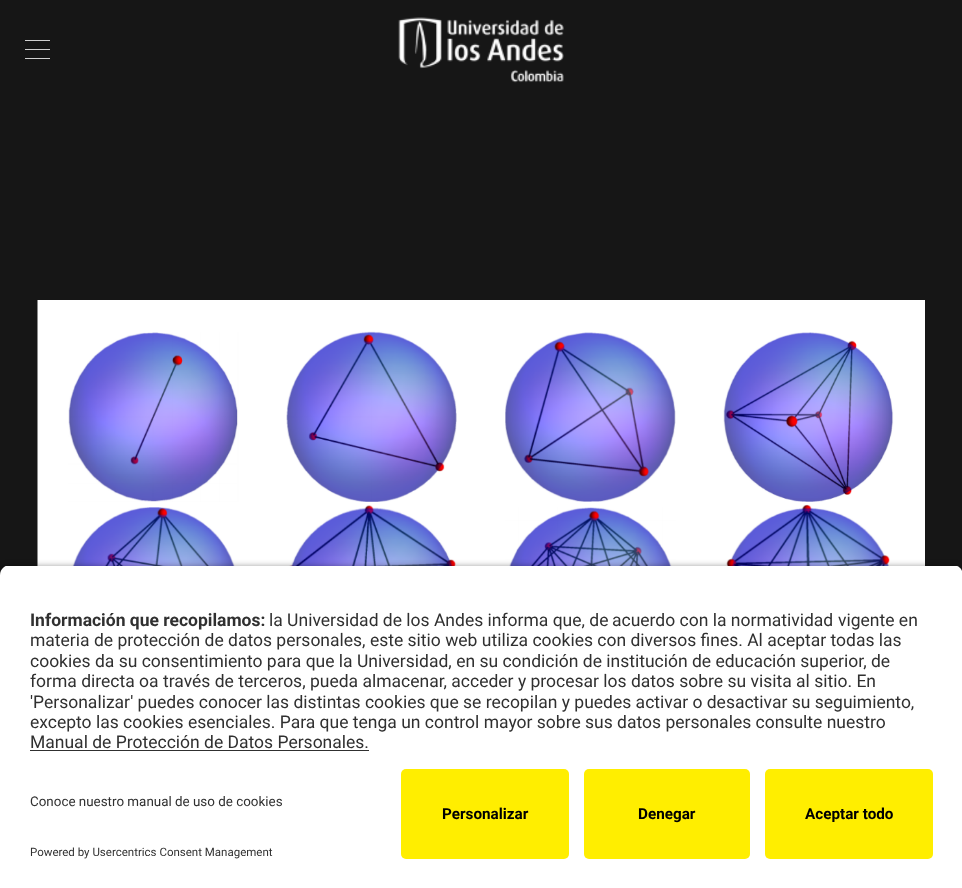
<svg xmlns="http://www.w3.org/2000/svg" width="962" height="888">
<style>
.a{font:bold 17.5px Roboto;fill:#303030}
.b{font:17.5px Roboto;fill:#303030}
.c{font:13.4px Roboto;fill:#303030}
.d{font:11.5px Roboto;fill:#303030}
.e{font:bold 15.25px Roboto;fill:#000}
</style>
<defs>
<clipPath id="clip1"><path d="M10 565h943c5.5 0 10 4.5 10 10v184h-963v-184c0-5.5 4.5-10 10-10z"/></clipPath>
</defs>
<rect width="100%" height="100%" fill="#161616"/>
<path fill="#d0d0d0" d="M25 40h25v1H25z"/>
<path fill="#d0d0d0" d="M25 49h25v1H25z"/>
<path fill="#d0d0d0" d="M25 58h25v1H25z"/>
<image href="1.png" x="398" y="17" width="166" height="66"/>
<image href="2.png" x="37" y="300" width="888" height="266"/>
<rect fill="#000000cc" filter="blur(4.5px)" y="569" width="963" height="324" rx="10"/>
<g clip-path="url(#clip1)">
<path fill="#fff" d="M0 566h962v193H0z"/>
</g>
<path fill="#303030" d="M30 750h339v1H30z"/>
<path fill="#fff" d="M0 759h962v129H0z"/>
<rect fill="#fe0" x="401" y="769" width="168" height="90" rx="5"/>
<rect fill="#fe0" x="584" y="769" width="166" height="90" rx="5"/>
<rect fill="#fe0" x="765" y="769" width="168" height="90" rx="5"/>
<text class="a" x="30" y="626">Información que recopilamos:</text>
<text class="b" x="269" y="626">la Universidad de los Andes informa que, de</text>
<text class="b" x="612" y="626">acuerdo con la normatividad</text>
<text class="b" x="838" y="626">vigente en</text>
<text class="b" x="30" y="646">materia de protección de datos personales, este sitio web utiliza cookies con diversos fines. Al aceptar todas las</text>
<text class="b" x="30" y="667">cookies da su consentimiento para que la Universidad, en su condición de institución de educación superior, de</text>
<text class="b" x="30" y="687">forma directa oa través de terceros, pueda almacenar, acceder y procesar los datos sobre su visita al sitio. En</text>
<text class="b" x="30" y="708">'Personalizar' puedes conocer las distintas cookies que se recopilan y puedes activar o desactivar su seguimiento,</text>
<text class="b" x="30" y="728">excepto las cookies esenciales. Para que tenga un control mayor sobre sus datos personales consulte nuestro</text>
<text class="b" x="30" y="748">Manual de Protección de Datos Personales.</text>
<text class="c" x="30" y="806">Conoce nuestro manual de uso de cookies</text>
<text class="d" x="30" y="856">Powered by Usercentrics Consent Management</text>
<text class="e" x="442" y="819">Personalizar</text>
<text class="e" x="638" y="819">Denegar</text>
<text class="e" x="805" y="819">Aceptar todo</text>
</svg>
